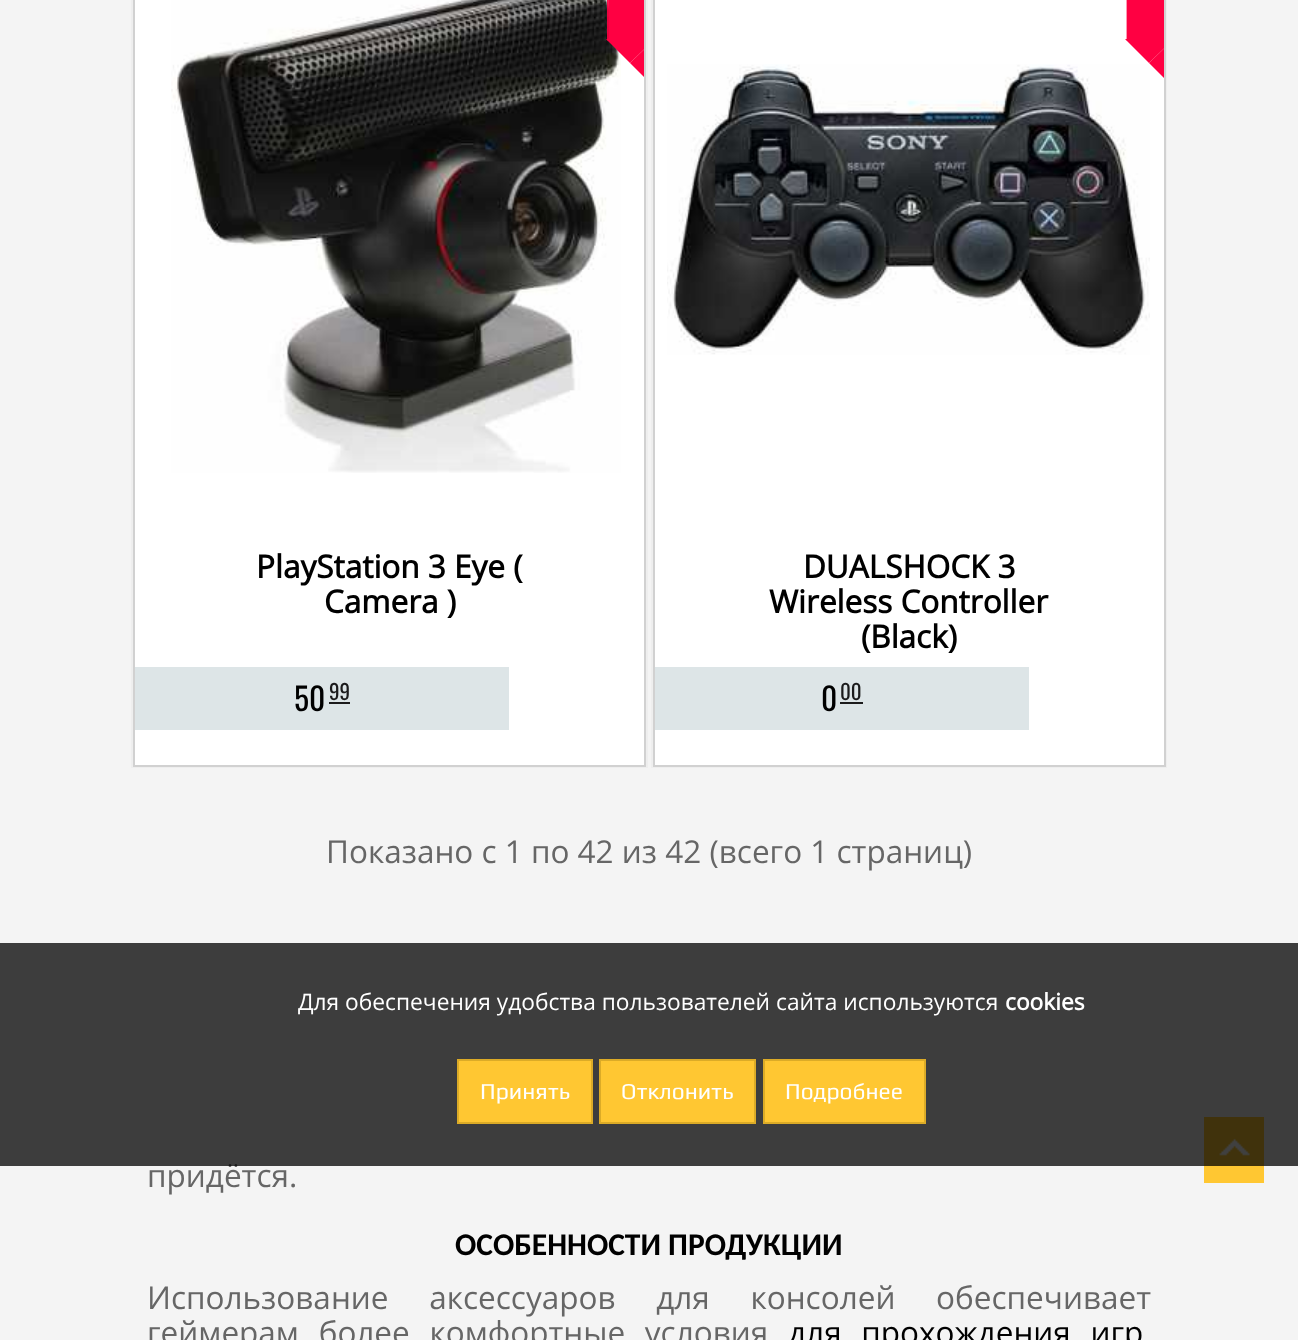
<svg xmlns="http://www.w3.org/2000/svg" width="1298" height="1340">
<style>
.a{font:bold 31.5px Open Sans;fill:#000}
.b{font:31.5px Oswald;fill:#000}
.c{font:21px Oswald;fill:#1b1b1c}
.d{font:31.5px Open Sans;fill:#666}
.e{font:bold 31.5px Carlito;fill:#000}
.f{font:31.5px Open Sans;fill:#000}
.g{font:22.75px Open Sans;fill:#fff}
.h{font:bold 22.75px Open Sans;fill:#fff}
.i{font:22.75px Play;fill:#fff}
</style>
<defs>
<clipPath id="clip1"><path d="M135 0h509v765H135z"/></clipPath>
<clipPath id="clip2"><path d="M655 0h509v765H655z"/></clipPath>
</defs>
<rect width="100%" height="100%" fill="#f4f4f4"/>
<path fill="none" stroke="#eee" stroke-width="2" d="M132 -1h515v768H132z"/>
<path fill="#fff" stroke="#d1d1d1" stroke-width="2" d="M134 -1h511v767H134z"/>
<image href="1.png" x="171" y="0" width="450" height="473"/>
<path fill="#ff0042" d="M609 0h35v39H609z"/>
<g clip-path="url(#clip1)">
<path fill="none" stroke="#ff0042" stroke-width="1.8" d="M653.5-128.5v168h-45.5v-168z"/>
<path fill="#ff0042" d="M655 39v49l-25-25z"/>
<path fill="#ff0042" d="M606 39h49l-25 24z"/>
</g>
<path fill="#dde5e7" d="M135 667h374v63H135z"/>
<path fill="#1b1b1c" d="M329 702h21v2H329z"/>
<path fill="none" stroke="#eee" stroke-width="2" d="M652 -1h514v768H652z"/>
<path fill="#fff" stroke="#d1d1d1" stroke-width="2" d="M654 -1h511v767H654z"/>
<path fill="#ff0042" d="M1128 0h36v39H1128z"/>
<g clip-path="url(#clip2)">
<path fill="none" stroke="#ff0042" stroke-width="1.8" d="M1173-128.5v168h-45.5v-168z"/>
</g>
<image href="2.png" x="667" y="64" width="483" height="291"/>
<g clip-path="url(#clip2)">
<path fill="#ff0042" d="M1174 39v49l-25-25z"/>
<path fill="#ff0042" d="M1125 39h49l-25 24z"/>
</g>
<path fill="#dde5e7" d="M655 667h374v63H655z"/>
<path fill="#1b1b1c" d="M840 702h23v2H840z"/>
<path fill="#ffc732" d="M1204 1117h60v66H1204z"/>
<image href="3.png" x="1219" y="1138" width="31" height="18"/>
<text class="a" x="256" y="578">PlayStation 3 Eye (</text>
<text class="a" x="324" y="613">Camera )</text>
<text class="b" x="294" y="711">50</text>
<text class="c" x="329" y="700">99</text>
<text class="a" x="803" y="578">DUALSHOCK 3</text>
<text class="a" x="769" y="613">Wireless Controller</text>
<text class="a" x="861" y="648">(Black)</text>
<text class="b" x="821" y="711">0</text>
<text class="c" x="840" y="700">00</text>
<text class="d" x="326" y="863">Показано с 1 по 42 из 42 (всего 1 страниц)</text>
<text class="d" x="147" y="1187">придётся.</text>
<text class="e" x="455" y="1255">ОСОБЕННОСТИ ПРОДУКЦИИ</text>
<text class="d" x="147" y="1309" word-spacing="32.5">Использование аксессуаров для консолей обеспечивает</text>
<text class="d" x="147" y="1344" word-spacing="11.5">геймерам более комфортные условия</text>
<text class="f" x="788" y="1344" word-spacing="11.5">для прохождения игр</text>
<path fill="#000000bf" d="M0 943h1298v223H0z"/>
<text class="g" x="298" y="1010">Для обеспечения удобства пользователей сайта используются</text>
<text class="h" x="1005" y="1010">cookies</text>
<path fill="#ffc732" stroke="#dcab27" stroke-width="2" d="M458 1060h134v63H458z"/>
<text class="i" x="480" y="1099">Принять</text>
<path fill="#ffc732" stroke="#dcab27" stroke-width="2" d="M600 1060h155v63H600z"/>
<text class="i" x="621" y="1099">Отклонить</text>
<path fill="#ffc732" stroke="#dcab27" stroke-width="2" d="M764 1060h161v63H764z"/>
<text class="i" x="785" y="1099">Подробнее</text>
</svg>
